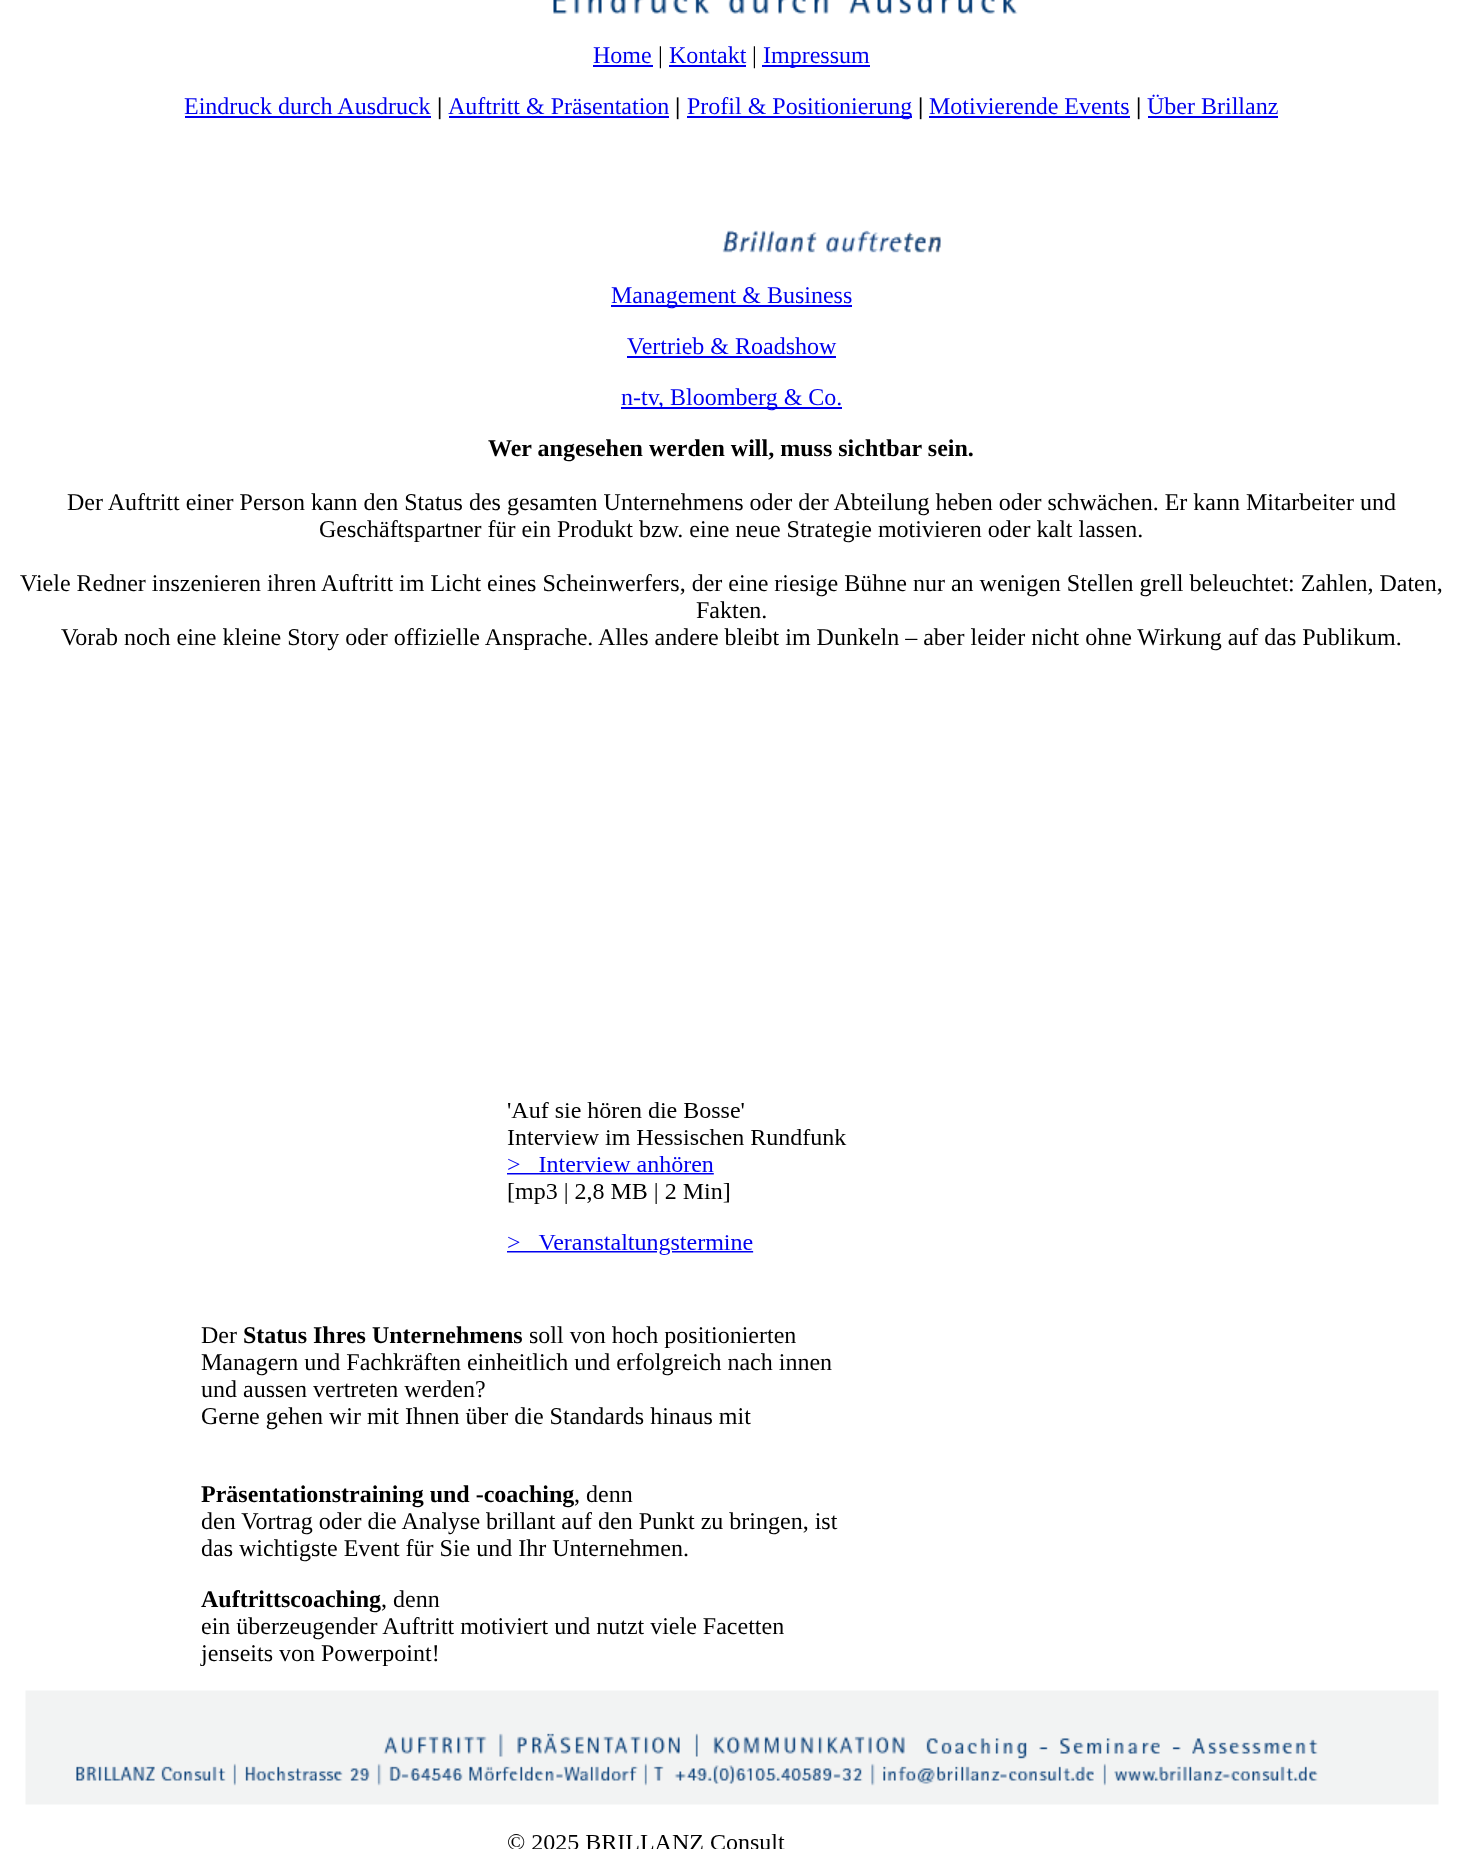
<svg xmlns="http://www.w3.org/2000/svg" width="1462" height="1849">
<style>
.a{font:24px Liberation Serif;fill:#00e}
.b{font:24px Liberation Serif;fill:#000}
.c{font:bold 24px Liberation Serif;fill:#000}
</style>
<rect width="100%" height="100%" fill="#fff"/>
<image href="1.png" x="553" y="0" width="465" height="14"/>
<path fill="#00e" d="M593 65h60v2H593z"/>
<path fill="#00e" d="M669 65h77v2H669z"/>
<path fill="#00e" d="M762 65h108v2H762z"/>
<path fill="#00e" d="M185 116h246v2H185z"/>
<path fill="#00e" d="M449 116h220v2H449z"/>
<path fill="#00e" d="M687 116h225v2H687z"/>
<path fill="#00e" d="M929 116h201v2H929z"/>
<path fill="#00e" d="M1148 116h130v2H1148z"/>
<image href="2.png" x="722" y="230" width="219" height="23"/>
<path fill="#00e" d="M611 305h241v2H611z"/>
<path fill="#00e" d="M627 356h209v2H627z"/>
<path fill="#00e" d="M621 407h221v2H621z"/>
<image href="3.png" x="507" y="1102" width="340" height="153"/>
<image href="4.png" x="25" y="1690" width="1414" height="115"/>
<image href="5.png" x="508" y="1834" width="277" height="15"/>
<text class="a" x="593" y="63">Home</text>
<text class="b" x="658" y="63">|</text>
<text class="a" x="669" y="63">Kontakt</text>
<text class="b" x="752" y="63">|</text>
<text class="a" x="763" y="63">Impressum</text>
<text class="a" x="184" y="114">Eindruck durch Ausdruck</text>
<text class="c" x="437" y="114">|</text>
<text class="a" x="448" y="114">Auftritt &amp; Präsentation</text>
<text class="c" x="675" y="114">|</text>
<text class="a" x="687" y="114">Profil &amp; Positionierung</text>
<text class="c" x="918" y="114">|</text>
<text class="a" x="929" y="114">Motivierende Events</text>
<text class="c" x="1136" y="114">|</text>
<text class="a" x="1147" y="114">Über Brillanz</text>
<text class="a" x="611" y="303">Management &amp; Business</text>
<text class="a" x="627" y="354">Vertrieb &amp; Roadshow</text>
<text class="a" x="621" y="405">n-tv, Bloomberg &amp; Co.</text>
<text class="c" x="488" y="456">Wer angesehen werden will, muss sichtbar sein.</text>
<text class="b" x="67" y="510">Der Auftritt einer Person kann den Status des gesamten Unternehmens oder der Abteilung heben oder schwächen. Er kann Mitarbeiter und</text>
<text class="b" x="319" y="537">Geschäftspartner für ein Produkt bzw. eine neue Strategie motivieren oder kalt lassen.</text>
<text class="b" x="20" y="591">Viele Redner inszenieren ihren Auftritt im Licht eines Scheinwerfers, der eine riesige Bühne nur an wenigen Stellen grell beleuchtet: Zahlen, Daten,</text>
<text class="b" x="696" y="618">Fakten.</text>
<text class="b" x="61" y="645">Vorab noch eine kleine Story oder offizielle Ansprache. Alles andere bleibt im Dunkeln – aber leider nicht ohne Wirkung auf das Publikum.</text>
<text class="b" x="201" y="1343">Der</text>
<text class="c" x="243" y="1343">Status Ihres Unternehmens</text>
<text class="b" x="529" y="1343">soll von hoch positionierten</text>
<text class="b" x="201" y="1370">Managern und Fachkräften einheitlich und erfolgreich nach innen</text>
<text class="b" x="201" y="1397">und aussen vertreten werden?</text>
<text class="b" x="201" y="1424">Gerne gehen wir mit Ihnen über die Standards hinaus mit</text>
<text class="c" x="201" y="1502">Präsentationstraining und -coaching</text>
<text class="b" x="574" y="1502">, denn</text>
<text class="b" x="201" y="1529">den Vortrag oder die Analyse brillant auf den Punkt zu bringen, ist</text>
<text class="b" x="201" y="1556">das wichtigste Event für Sie und Ihr Unternehmen.</text>
<text class="c" x="201" y="1607">Auftrittscoaching</text>
<text class="b" x="381" y="1607">, denn</text>
<text class="b" x="201" y="1634">ein überzeugender Auftritt motiviert und nutzt viele Facetten</text>
<text class="b" x="201" y="1661">jenseits von Powerpoint!</text>
</svg>
